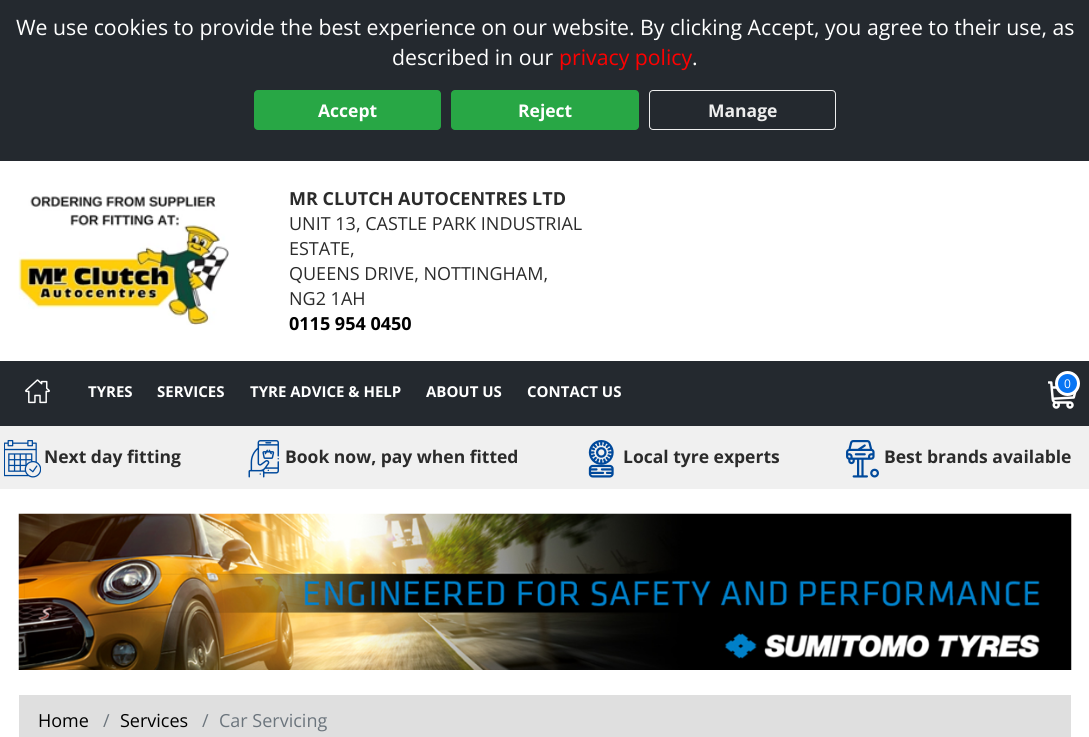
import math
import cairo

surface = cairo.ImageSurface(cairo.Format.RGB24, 1089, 737)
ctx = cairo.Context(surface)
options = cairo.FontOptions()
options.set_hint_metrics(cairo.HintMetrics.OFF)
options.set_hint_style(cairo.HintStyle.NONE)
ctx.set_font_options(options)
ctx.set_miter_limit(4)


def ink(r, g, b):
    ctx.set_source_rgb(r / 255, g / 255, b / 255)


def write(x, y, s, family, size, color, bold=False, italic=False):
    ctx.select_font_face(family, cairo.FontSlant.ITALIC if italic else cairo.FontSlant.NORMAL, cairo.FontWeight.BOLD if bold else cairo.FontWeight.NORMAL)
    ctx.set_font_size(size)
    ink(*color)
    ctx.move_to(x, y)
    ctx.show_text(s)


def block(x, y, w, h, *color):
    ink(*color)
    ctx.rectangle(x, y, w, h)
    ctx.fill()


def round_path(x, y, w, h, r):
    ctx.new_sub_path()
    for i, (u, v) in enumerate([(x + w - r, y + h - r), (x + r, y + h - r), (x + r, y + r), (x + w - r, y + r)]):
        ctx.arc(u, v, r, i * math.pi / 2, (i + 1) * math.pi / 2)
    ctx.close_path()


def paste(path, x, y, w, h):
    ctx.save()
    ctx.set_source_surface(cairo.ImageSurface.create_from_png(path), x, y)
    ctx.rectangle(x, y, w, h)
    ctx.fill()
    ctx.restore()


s1 = dict(family="Open Sans", size=21.25, color=(255, 255, 255))
s2 = dict(family="Open Sans", size=21.25, color=(255, 0, 0))
s3 = dict(family="Open Sans", size=17.5, color=(255, 255, 255), bold=True)
s4 = dict(family="Open Sans", size=17.5, color=(238, 238, 238), bold=True)
s5 = dict(family="Open Sans", size=18, color=(43, 43, 43), bold=True)
s6 = dict(family="Open Sans", size=18, color=(43, 43, 43))
s7 = dict(family="Open Sans", size=18, color=(0, 0, 0), bold=True)
s8 = dict(family="Open Sans", size=15, color=(255, 255, 255), bold=True)
s9 = dict(family="Open Sans", size=12, color=(255, 255, 255))
s10 = dict(family="Open Sans", size=17.5, color=(43, 43, 43), bold=True)
s11 = dict(family="Open Sans", size=18, color=(0, 0, 0))
s12 = dict(family="Open Sans", size=18, color=(108, 117, 125))

ink(255, 255, 255)
ctx.paint()
block(0, 0, 1089, 161, 36, 41, 47)
write(16, 35, "We use cookies to provide the best experience on our website. By clicking Accept, you agree to their use, as", **s1)
write(392, 65, "described in our", **s1)
write(559, 65, "privacy policy", **s2)
write(692, 65, ".", **s1)
ink(40, 167, 69)
round_path(254, 90, 187, 40, 4)
ctx.fill()
write(318, 117, "Accept", **s3)
ink(40, 167, 69)
round_path(451, 90, 188, 40, 4)
ctx.fill()
write(518, 117, "Reject", **s3)
round_path(649.5, 90.5, 186, 39, 3.5)
ink(238, 238, 238)
ctx.set_line_width(1)
ctx.stroke()
write(708, 117, "Manage", **s4)
paste("pic1.png", 18, 196, 211, 129)
write(289, 205, "MR CLUTCH AUTOCENTRES LTD", **s5)
write(289, 230, "UNIT 13, CASTLE PARK INDUSTRIAL", **s6)
write(289, 255, "ESTATE,", **s6)
write(289, 280, "QUEENS DRIVE, NOTTINGHAM,", **s6)
write(289, 305, "NG2 1AH", **s6)
write(289, 330, "0115 954 0450", **s7)
block(0, 361, 1089, 65, 36, 41, 47)
paste("pic2.png", 25, 379, 25, 25)
write(88, 397, "TYRES", **s8)
write(157, 397, "SERVICES", **s8)
write(250, 397, "TYRE ADVICE & HELP", **s8)
write(426, 397, "ABOUT US", **s8)
write(527, 397, "CONTACT US", **s8)
paste("pic3.png", 1048, 381, 29, 28)
ink(8, 117, 244)
ctx.arc(1067.5, 383.5, 11, 0, 2 * math.pi)
ctx.fill_preserve()
ink(255, 255, 255)
ctx.set_line_width(3)
ctx.stroke()
write(1064, 388, "0", **s9)
block(0, 426, 1089, 63, 240, 240, 240)
paste("pic4.png", 4, 440, 37, 38)
write(44, 463, "Next day fitting", **s10)
paste("pic5.png", 248, 440, 31, 38)
write(285, 463, "Book now, pay when fitted", **s10)
paste("pic6.png", 588, 440, 26, 38)
write(623, 463, "Local tyre experts", **s10)
paste("pic7.png", 846, 440, 33, 38)
write(884, 463, "Best brands available", **s10)
paste("pic8.png", 18, 513, 1054, 157)
block(19, 695, 1052, 42, 223, 223, 223)
write(38, 727, "Home", **s11)
write(103, 727, "/", **s12)
write(120, 727, "Services", **s11)
write(202, 727, "/", **s12)
write(219, 727, "Car Servicing", **s12)
surface.write_to_png("screenshot.png")
